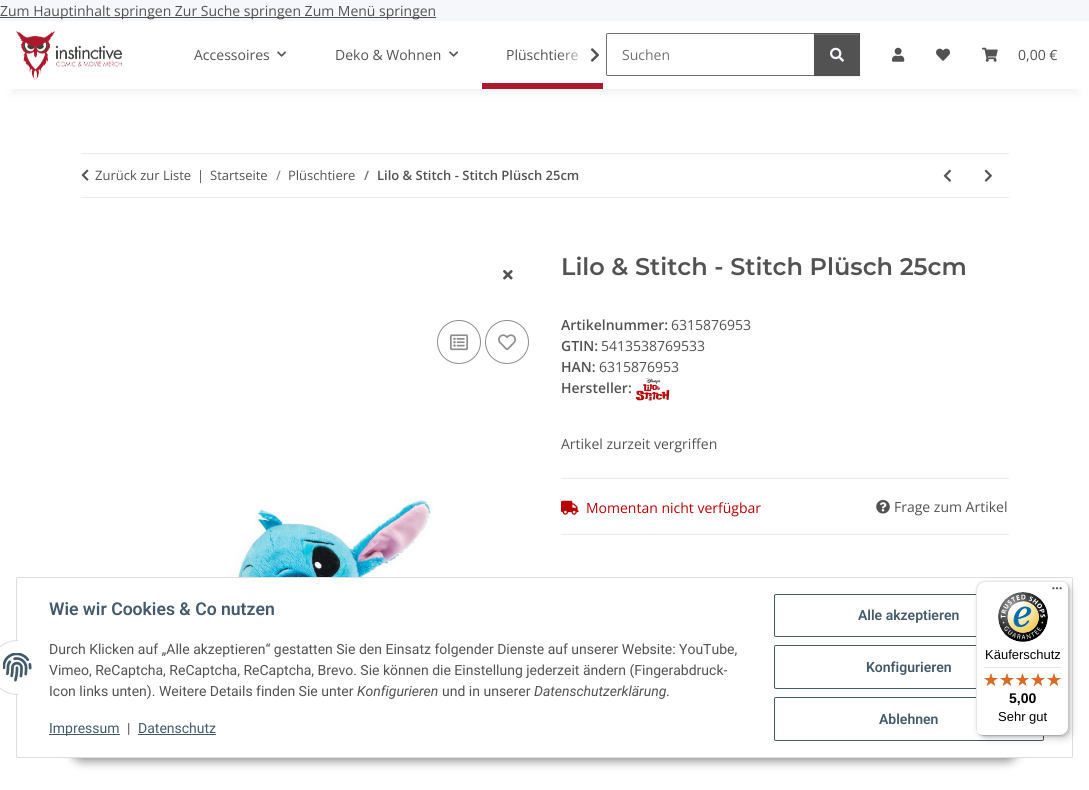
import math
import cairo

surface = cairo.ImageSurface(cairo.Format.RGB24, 1089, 790)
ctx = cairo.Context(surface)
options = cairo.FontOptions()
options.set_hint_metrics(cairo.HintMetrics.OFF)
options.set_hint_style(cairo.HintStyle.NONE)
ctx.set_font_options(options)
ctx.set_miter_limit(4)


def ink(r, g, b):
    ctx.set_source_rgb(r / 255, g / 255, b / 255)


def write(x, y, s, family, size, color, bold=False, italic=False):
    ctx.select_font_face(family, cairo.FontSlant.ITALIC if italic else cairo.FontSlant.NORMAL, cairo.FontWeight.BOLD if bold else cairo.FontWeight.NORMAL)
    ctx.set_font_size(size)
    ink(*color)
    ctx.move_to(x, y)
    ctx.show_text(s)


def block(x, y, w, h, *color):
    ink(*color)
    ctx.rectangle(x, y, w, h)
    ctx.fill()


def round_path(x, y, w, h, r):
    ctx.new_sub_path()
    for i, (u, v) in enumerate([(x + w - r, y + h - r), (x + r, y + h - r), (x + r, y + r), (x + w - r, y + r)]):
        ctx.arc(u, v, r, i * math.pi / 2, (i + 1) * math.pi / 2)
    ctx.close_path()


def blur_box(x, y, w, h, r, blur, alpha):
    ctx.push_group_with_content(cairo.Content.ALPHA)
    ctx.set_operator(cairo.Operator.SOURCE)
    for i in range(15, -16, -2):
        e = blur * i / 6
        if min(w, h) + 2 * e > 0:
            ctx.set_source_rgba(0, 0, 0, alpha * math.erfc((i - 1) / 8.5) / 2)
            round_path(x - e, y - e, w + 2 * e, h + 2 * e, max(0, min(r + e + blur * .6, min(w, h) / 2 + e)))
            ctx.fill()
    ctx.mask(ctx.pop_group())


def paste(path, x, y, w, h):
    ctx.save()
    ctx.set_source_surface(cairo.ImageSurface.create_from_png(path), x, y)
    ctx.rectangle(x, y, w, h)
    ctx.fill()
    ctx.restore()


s1 = dict(family="Open Sans", size=14, color=(82, 82, 82))
s2 = dict(family="Open Sans", size=14, color=(112, 112, 112))
s3 = dict(family="Open Sans", size=13, color=(82, 82, 82))
s4 = dict(family="Open Sans", size=13, color=(112, 112, 112))
s5 = dict(family="Open Sans SemiBold", size=13, color=(112, 112, 112))
s6 = dict(family="Open Sans SemiBold", size=13, color=(82, 82, 82))
s7 = dict(family="Montserrat SemiBold", size=24, color=(82, 82, 82))
s8 = dict(family="Open Sans SemiBold", size=14, color=(82, 82, 82))
s9 = dict(family="Open Sans", size=14, color=(185, 0, 0))
s10 = dict(family="Roboto SemiBold", size=17.6, color=(67, 90, 107))
s11 = dict(family="Roboto", size=14, color=(82, 82, 82))
s12 = dict(family="Roboto", size=14, color=(82, 82, 82), italic=True)
s13 = dict(family="Roboto", size=14, color=(67, 90, 107))
s14 = dict(family="Roboto SemiBold", size=14, color=(67, 90, 107))
s15 = dict(family="Liberation Sans", size=13, color=(0, 0, 0))
s16 = dict(family="Liberation Sans", size=14, color=(0, 0, 0), bold=True)

ink(245, 247, 250)
ctx.paint()
block(0, 17, 436, 1, 82, 82, 82)
write(0, 16, "Zum Hauptinhalt springen Zur Suche springen Zum Menü springen", **s1)
block(0, 89, 1089, 701, 255, 255, 255)
ink(0, 0, 0)
blur_box(12, 49, 1065, 44, 0, 4.5, 0.06)
block(0, 21, 1089, 68, 255, 255, 255)
paste("pic1.png", 16, 30, 106, 50)
write(194, 60, "Accessoires", **s1)
paste("pic2.png", 277, 51, 9, 6)
write(335, 60, "Deko & Wohnen", **s1)
paste("pic2.png", 449, 51, 9, 6)
write(506, 60, "Plüschtiere", **s1)
block(482, 83, 121, 6, 172, 24, 46)
gradient = cairo.LinearGradient(558, 55, 606, 55)
gradient.add_color_stop_rgba(0, 1, 1, 1, 0.01)
gradient.add_color_stop_rgba(0.7, 1, 1, 1, 1)
ctx.set_source(gradient)
ctx.rectangle(558, 52, 20, 9)
ctx.fill()
paste("pic3.png", 590, 48, 10, 14)
ctx.new_path()
ctx.move_to(608, 33.5)
ctx.line_to(814.5, 33.5)
ctx.line_to(814.5, 75.5)
ctx.line_to(608, 75.5)
ctx.curve_to(607, 75.5, 606.5, 75, 606.5, 74)
ctx.line_to(606.5, 35)
ctx.curve_to(606.5, 34, 607, 33.5, 608, 33.5)
ctx.close_path()
ink(112, 112, 112)
ctx.set_line_width(1)
ctx.stroke()
write(622, 60, "Suchen", **s2)
ink(0, 0, 0)
blur_box(814, 34, 46, 43, 0, 0.5, 0.07)
block(814, 33, 46, 43, 82, 82, 82)
block(815, 34, 44, 1, 108, 108, 108)
paste("pic4.png", 830, 47, 14, 15)
paste("pic5.png", 892, 47, 13, 15)
paste("pic6.png", 936, 48, 14, 13)
paste("pic7.png", 982, 47, 16, 15)
write(1018, 60, "0,00 €", **s1)
block(81, 153, 928, 1, 235, 235, 235)
block(81, 197, 928, 1, 235, 235, 235)
paste("pic8.png", 81, 169, 8, 12)
write(95, 180, "Zurück zur Liste", **s3)
write(197, 180, "|", **s3)
write(210, 180, "Startseite", **s3)
write(276, 180, "/", **s4)
write(288, 180, "Plüschtiere", **s3)
write(364, 180, "/", **s5)
write(377, 180, "Lilo & Stitch - Stitch Plüsch 25cm", **s6)
paste("pic9.png", 943, 169, 8, 13)
paste("pic10.png", 984, 169, 8, 13)
paste("pic11.png", 503, 270, 10, 10)
ctx.arc(459, 342, 21.5, 0, 2 * math.pi)
ink(141, 141, 141)
ctx.stroke()
paste("pic12.png", 450, 334, 18, 17)
ctx.arc(507, 342, 21.5, 0, 2 * math.pi)
ctx.stroke()
paste("pic13.png", 498, 334, 18, 17)
paste("pic14.png", 141, 497, 292, 80)
write(561, 275, "Lilo & Stitch - Stitch Plüsch 25cm", **s7)
write(561, 330, "Artikelnummer:", **s8)
write(671, 330, "6315876953", **s1)
write(561, 351, "GTIN:", **s8)
write(601, 351, "5413538769533", **s1)
write(561, 372, "HAN:", **s8)
write(599, 372, "6315876953", **s1)
write(561, 393, "Hersteller:", **s8)
paste("pic15.png", 635, 378, 35, 23)
write(561, 449, "Artikel zurzeit vergriffen", **s1)
block(561, 478, 448, 1, 235, 235, 235)
block(561, 534, 448, 1, 235, 235, 235)
paste("pic16.png", 561, 500, 18, 15)
write(586, 513, "Momentan nicht verfügbar", **s9)
paste("pic17.png", 876, 500, 14, 14)
write(894, 512, "Frage zum Artikel", **s1)
ink(0, 0, 0)
blur_box(70, 729, 949, 32, 16, 5, 0.45)
ink(255, 255, 255)
round_path(16.5, 577.5, 1056, 180, 1.5)
ctx.fill_preserve()
ink(221, 221, 221)
ctx.stroke()
ink(255, 255, 255)
ctx.arc(17.5, 667.5, 27, 0, 2 * math.pi)
ctx.fill_preserve()
ink(221, 221, 221)
ctx.stroke()
block(18, 640, 27, 55, 255, 255, 255)
paste("pic18.png", 3, 653, 29, 29)
write(49, 615, "Wie wir Cookies & Co nutzen", **s10)
write(49, 654, "Durch Klicken auf „Alle akzeptieren“ gestatten Sie den Einsatz folgender Dienste auf unserer Website: YouTube,", **s11)
write(49, 675, "Vimeo, ReCaptcha, ReCaptcha, ReCaptcha, Brevo. Sie können die Einstellung jederzeit ändern (Fingerabdruck-", **s11)
write(49, 696, "Icon links unten). Weitere Details finden Sie unter", **s11)
write(357, 696, "Konfigurieren", **s12)
write(442, 696, "und in unserer", **s11)
write(534, 696, "Datenschutzerklärung", **s12)
write(666, 696, ".", **s11)
block(49, 734, 71, 1, 67, 90, 107)
write(49, 733, "Impressum", **s13)
write(127, 733, "|", **s11)
write(138, 733, "Datenschutz", **s13)
block(138, 734, 78, 1, 67, 90, 107)
round_path(774.5, 594.5, 269, 42, 1.5)
ctx.stroke()
write(858, 620, "Alle akzeptieren", **s14)
round_path(774.5, 645.5, 269, 43, 1.5)
ctx.stroke()
write(866, 672, "Konfigurieren", **s14)
round_path(774.5, 697.5, 269, 43, 1.5)
ctx.stroke()
write(879, 724, "Ablehnen", **s14)
ink(0, 0, 0)
blur_box(979, 584, 93, 155, 8, 4, 0.15)
blur_box(977, 582, 93, 155, 8, 1, 0.15)
ink(255, 255, 255)
round_path(976, 581, 93, 155, 8)
ctx.fill()
ink(229, 229, 229)
ctx.new_path()
ctx.move_to(985, 582)
ctx.line_to(1062, 582)
ctx.curve_to(1064, 582, 1066, 583, 1068, 585)
ctx.curve_to(1066, 583, 1064, 581, 1061, 581)
ctx.line_to(984, 581)
ctx.curve_to(980, 581, 976, 585, 976, 589)
ctx.line_to(976, 728)
ctx.curve_to(976, 731, 978, 733, 980, 735)
ctx.curve_to(978, 733, 977, 731, 977, 729)
ctx.line_to(977, 590)
ctx.curve_to(977, 586, 981, 582, 985, 582)
ctx.close_path()
ctx.fill()
ink(204, 204, 204)
ctx.new_path()
ctx.move_to(977, 732)
ctx.curve_to(979, 734, 981, 736, 984, 736)
ctx.line_to(1061, 736)
ctx.curve_to(1065, 736, 1069, 732, 1069, 728)
ctx.line_to(1069, 589)
ctx.curve_to(1069, 586, 1067, 584, 1065, 582)
ctx.curve_to(1067, 584, 1068, 586, 1068, 588)
ctx.line_to(1068, 727)
ctx.curve_to(1068, 731, 1064, 735, 1060, 735)
ctx.line_to(983, 735)
ctx.curve_to(981, 735, 979, 734, 977, 732)
ctx.close_path()
ctx.fill()
ctx.set_source_rgba(0.196, 0.196, 0.196, 0.2)
ctx.new_path()
ctx.move_to(978, 733)
ctx.curve_to(979, 735, 982, 736, 984, 736)
ctx.line_to(1061, 736)
ctx.curve_to(1065, 736, 1069, 732, 1069, 728)
ctx.line_to(1069, 589)
ctx.curve_to(1069, 587, 1068, 584, 1066, 583)
ctx.curve_to(1067, 584, 1068, 586, 1068, 588)
ctx.line_to(1068, 727)
ctx.curve_to(1068, 732, 1065, 735, 1060, 735)
ctx.line_to(983, 735)
ctx.curve_to(981, 735, 979, 734, 978, 733)
ctx.close_path()
ctx.fill()
ctx.set_source_rgba(1, 1, 1, 0.3)
ctx.new_path()
ctx.move_to(1060, 736)
ctx.line_to(1061, 736)
ctx.curve_to(1065, 736, 1069, 732, 1069, 728)
ctx.line_to(1069, 589)
ctx.curve_to(1069, 587, 1068, 584, 1066, 583)
ctx.curve_to(1067, 584, 1068, 586, 1068, 588)
ctx.line_to(1068, 728)
ctx.curve_to(1068, 732, 1065, 736, 1060, 736)
ctx.close_path()
ctx.fill()
paste("pic19.png", 1052, 587, 10, 3)
paste("pic20.png", 998, 592, 50, 50)
write(985, 659, "Käuferschutz", **s15)
block(984, 667, 77, 1, 229, 229, 229)
paste("pic21.png", 984, 673, 14, 13)
paste("pic21.png", 1000, 673, 14, 13)
paste("pic22.png", 1016, 673, 13, 13)
paste("pic21.png", 1031, 673, 14, 13)
paste("pic21.png", 1047, 673, 14, 13)
paste("pic23.png", 984, 673, 14, 13)
paste("pic23.png", 1000, 673, 14, 13)
paste("pic24.png", 1016, 673, 13, 13)
paste("pic23.png", 1031, 673, 14, 13)
paste("pic23.png", 1047, 673, 14, 13)
write(1009, 703, "5,00", **s16)
write(998, 721, "Sehr gut", **s15)
surface.write_to_png("screenshot.png")
